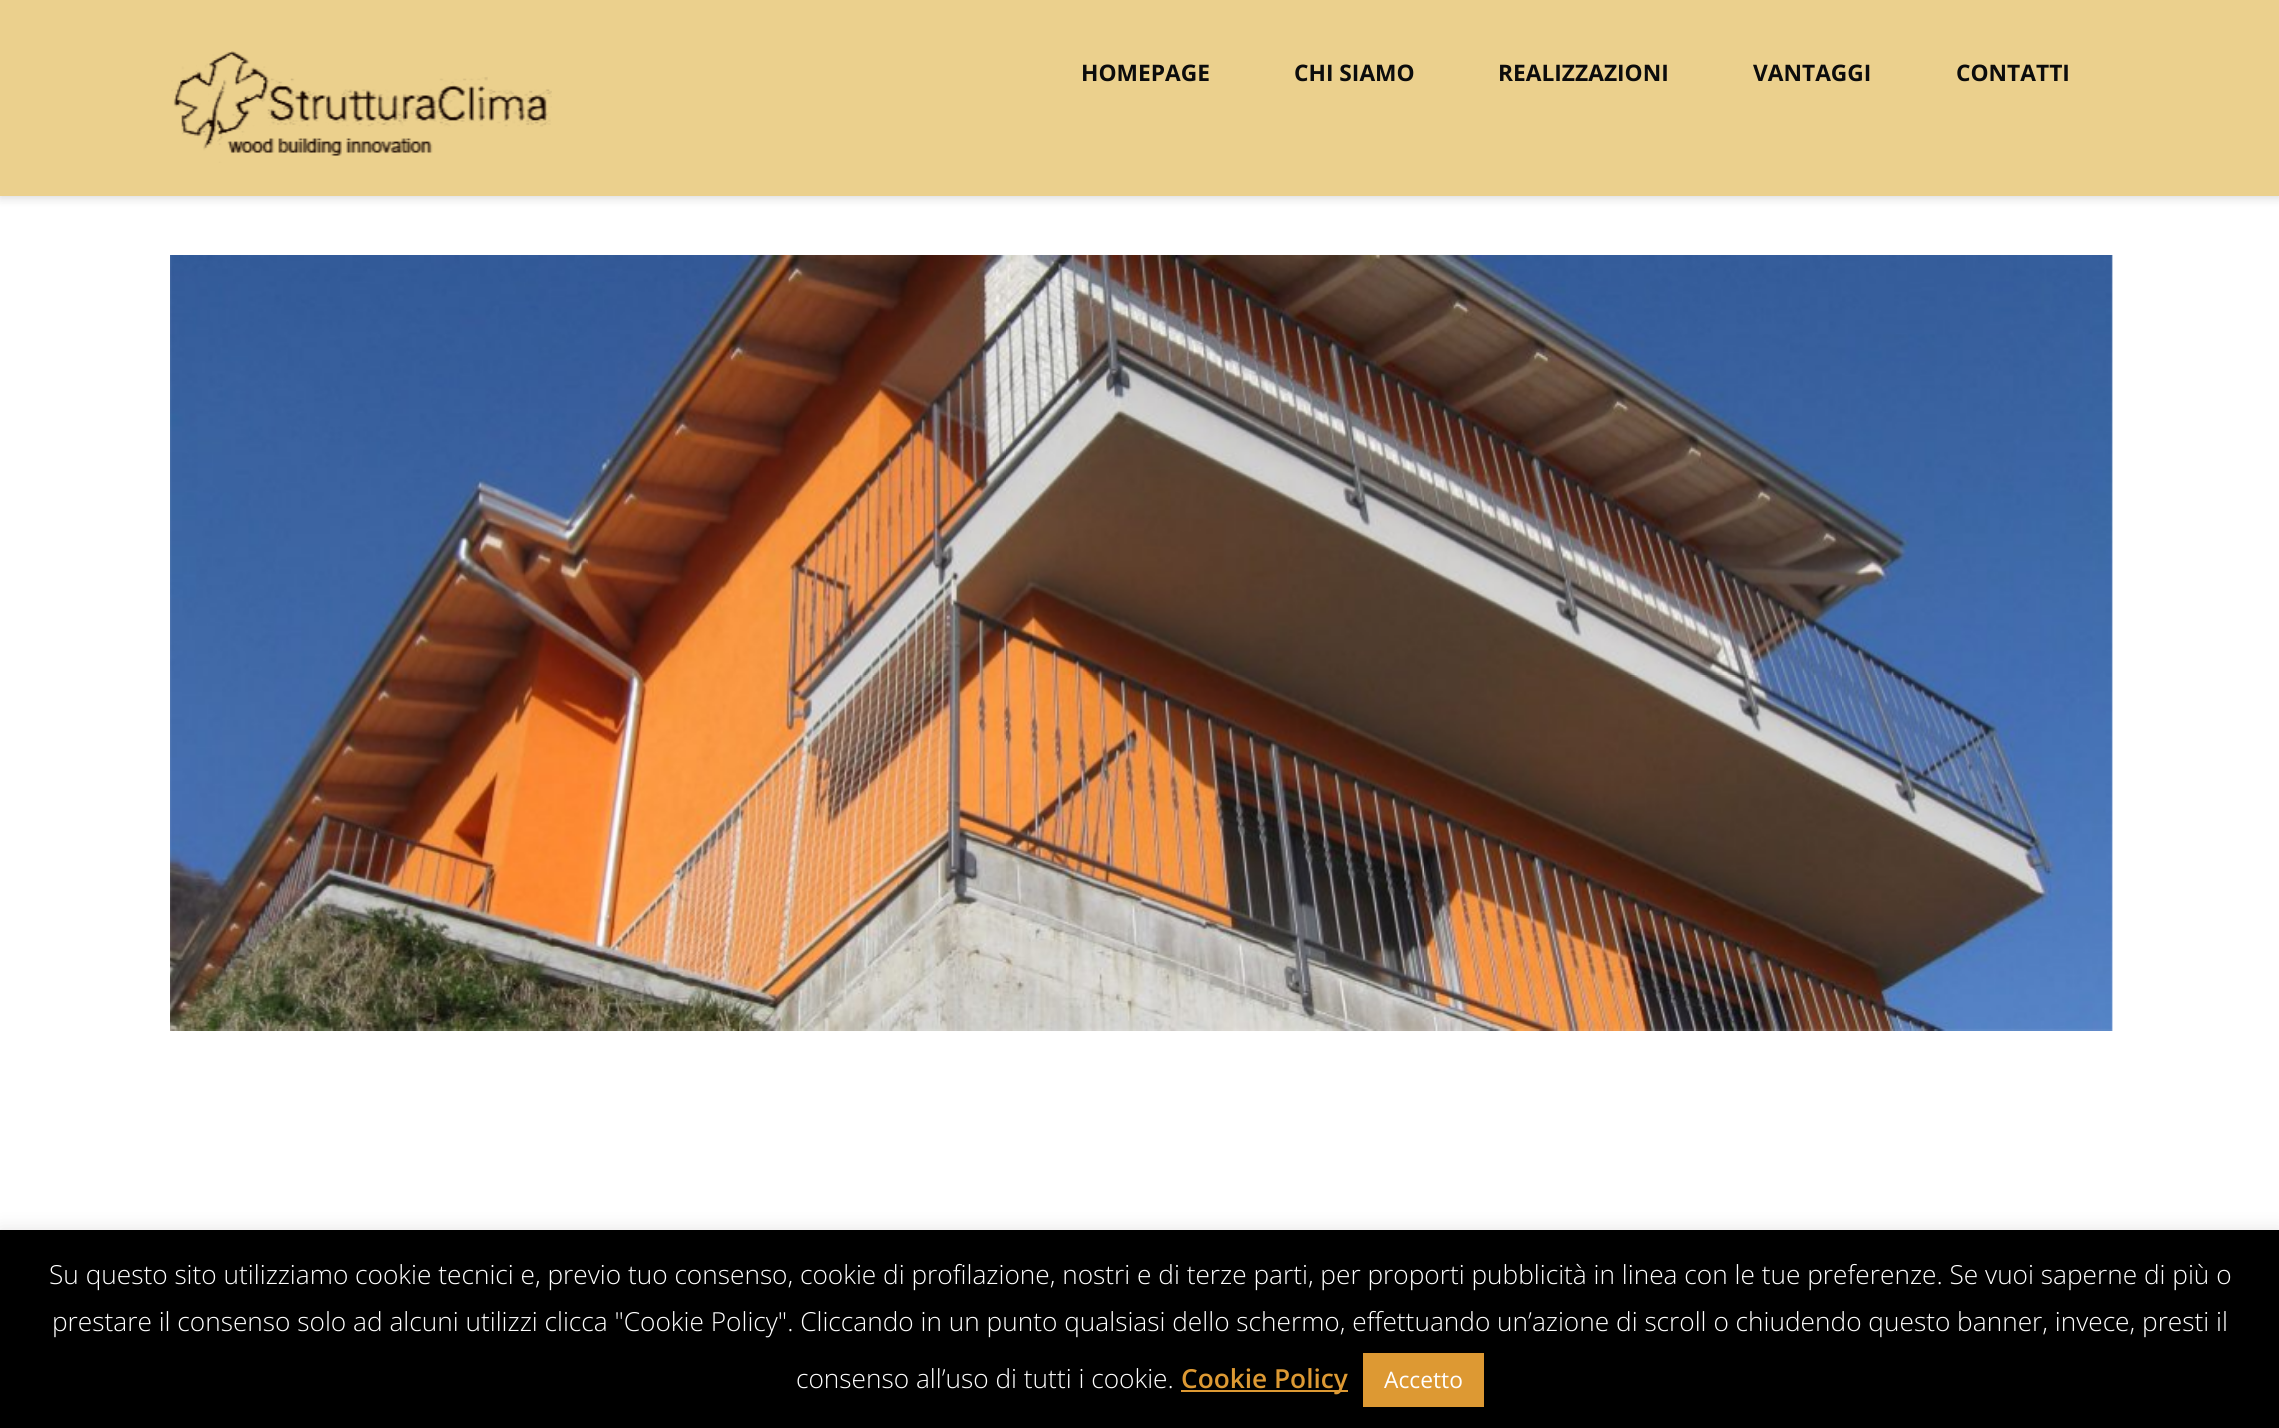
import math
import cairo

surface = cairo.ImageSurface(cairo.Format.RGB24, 2279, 1428)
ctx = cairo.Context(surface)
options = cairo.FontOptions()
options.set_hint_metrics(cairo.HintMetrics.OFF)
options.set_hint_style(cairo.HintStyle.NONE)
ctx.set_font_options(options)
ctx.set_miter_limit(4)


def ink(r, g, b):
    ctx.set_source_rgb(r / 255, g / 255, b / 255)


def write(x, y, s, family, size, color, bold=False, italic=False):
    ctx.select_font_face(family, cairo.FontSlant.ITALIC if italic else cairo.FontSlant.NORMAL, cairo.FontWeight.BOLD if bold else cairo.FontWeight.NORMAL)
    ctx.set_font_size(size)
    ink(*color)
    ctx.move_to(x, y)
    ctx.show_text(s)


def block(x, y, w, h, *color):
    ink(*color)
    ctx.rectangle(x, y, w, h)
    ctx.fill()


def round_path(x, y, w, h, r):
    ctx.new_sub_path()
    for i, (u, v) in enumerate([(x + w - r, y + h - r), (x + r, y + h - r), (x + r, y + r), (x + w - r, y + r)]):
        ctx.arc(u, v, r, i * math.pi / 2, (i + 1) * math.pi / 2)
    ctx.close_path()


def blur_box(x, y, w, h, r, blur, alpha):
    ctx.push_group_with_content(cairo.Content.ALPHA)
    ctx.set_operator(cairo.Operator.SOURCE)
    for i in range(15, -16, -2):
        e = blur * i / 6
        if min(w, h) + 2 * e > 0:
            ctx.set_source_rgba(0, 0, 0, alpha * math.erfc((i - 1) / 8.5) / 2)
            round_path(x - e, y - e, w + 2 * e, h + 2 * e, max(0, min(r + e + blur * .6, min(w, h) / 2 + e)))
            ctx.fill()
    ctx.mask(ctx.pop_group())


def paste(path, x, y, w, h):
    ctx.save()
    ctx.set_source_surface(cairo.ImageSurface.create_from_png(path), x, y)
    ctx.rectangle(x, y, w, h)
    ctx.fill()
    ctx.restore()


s1 = dict(family="Open Sans", size=22.75, color=(12, 12, 12), bold=True)
s2 = dict(family="Open Sans Light", size=26.25, color=(255, 255, 255))
s3 = dict(family="Open Sans SemiBold", size=26.25, color=(221, 153, 51))
s4 = dict(family="Open Sans", size=22.75, color=(255, 255, 255))

ink(255, 255, 255)
ctx.paint()
ink(0, 0, 0)
blur_box(0, 2, 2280, 196, 0, 5, 0.15)
block(0, 0, 2279, 196, 235, 208, 141)
paste("pic1.png", 171, 51, 381, 112)
write(1081, 81, "HOMEPAGE", **s1)
write(1294, 81, "CHI SIAMO", **s1)
write(1498, 81, "REALIZZAZIONI", **s1)
write(1753, 81, "VANTAGGI", **s1)
write(1956, 81, "CONTATTI", **s1)
paste("pic2.png", 170, 255, 1943, 776)
ink(172, 171, 171)
blur_box(0, 1229, 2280, 197, 0, 9, 0.3)
block(0, 1230, 2279, 198, 0, 0, 0)
write(49, 1284, "Su questo sito utilizziamo cookie tecnici e, previo tuo consenso, cookie di profilazione, nostri e di terze parti, per proporti pubblicità in linea con le tue preferenze. Se vuoi saperne di più o", **s2)
write(52, 1331, "prestare il consenso solo ad alcuni utilizzi clicca \"Cookie Policy\". Cliccando in un punto qualsiasi dello schermo, effettuando un’azione di scroll o chiudendo questo banner, invece, presti il", **s2)
write(796, 1388, "consenso all’uso di tutti i cookie.", **s2)
block(1181, 1390, 167, 2, 221, 153, 51)
write(1181, 1388, "Cookie Policy", **s3)
block(1363, 1353, 121, 54, 221, 153, 51)
write(1384, 1388, "Accetto", **s4)
surface.write_to_png("screenshot.png")
